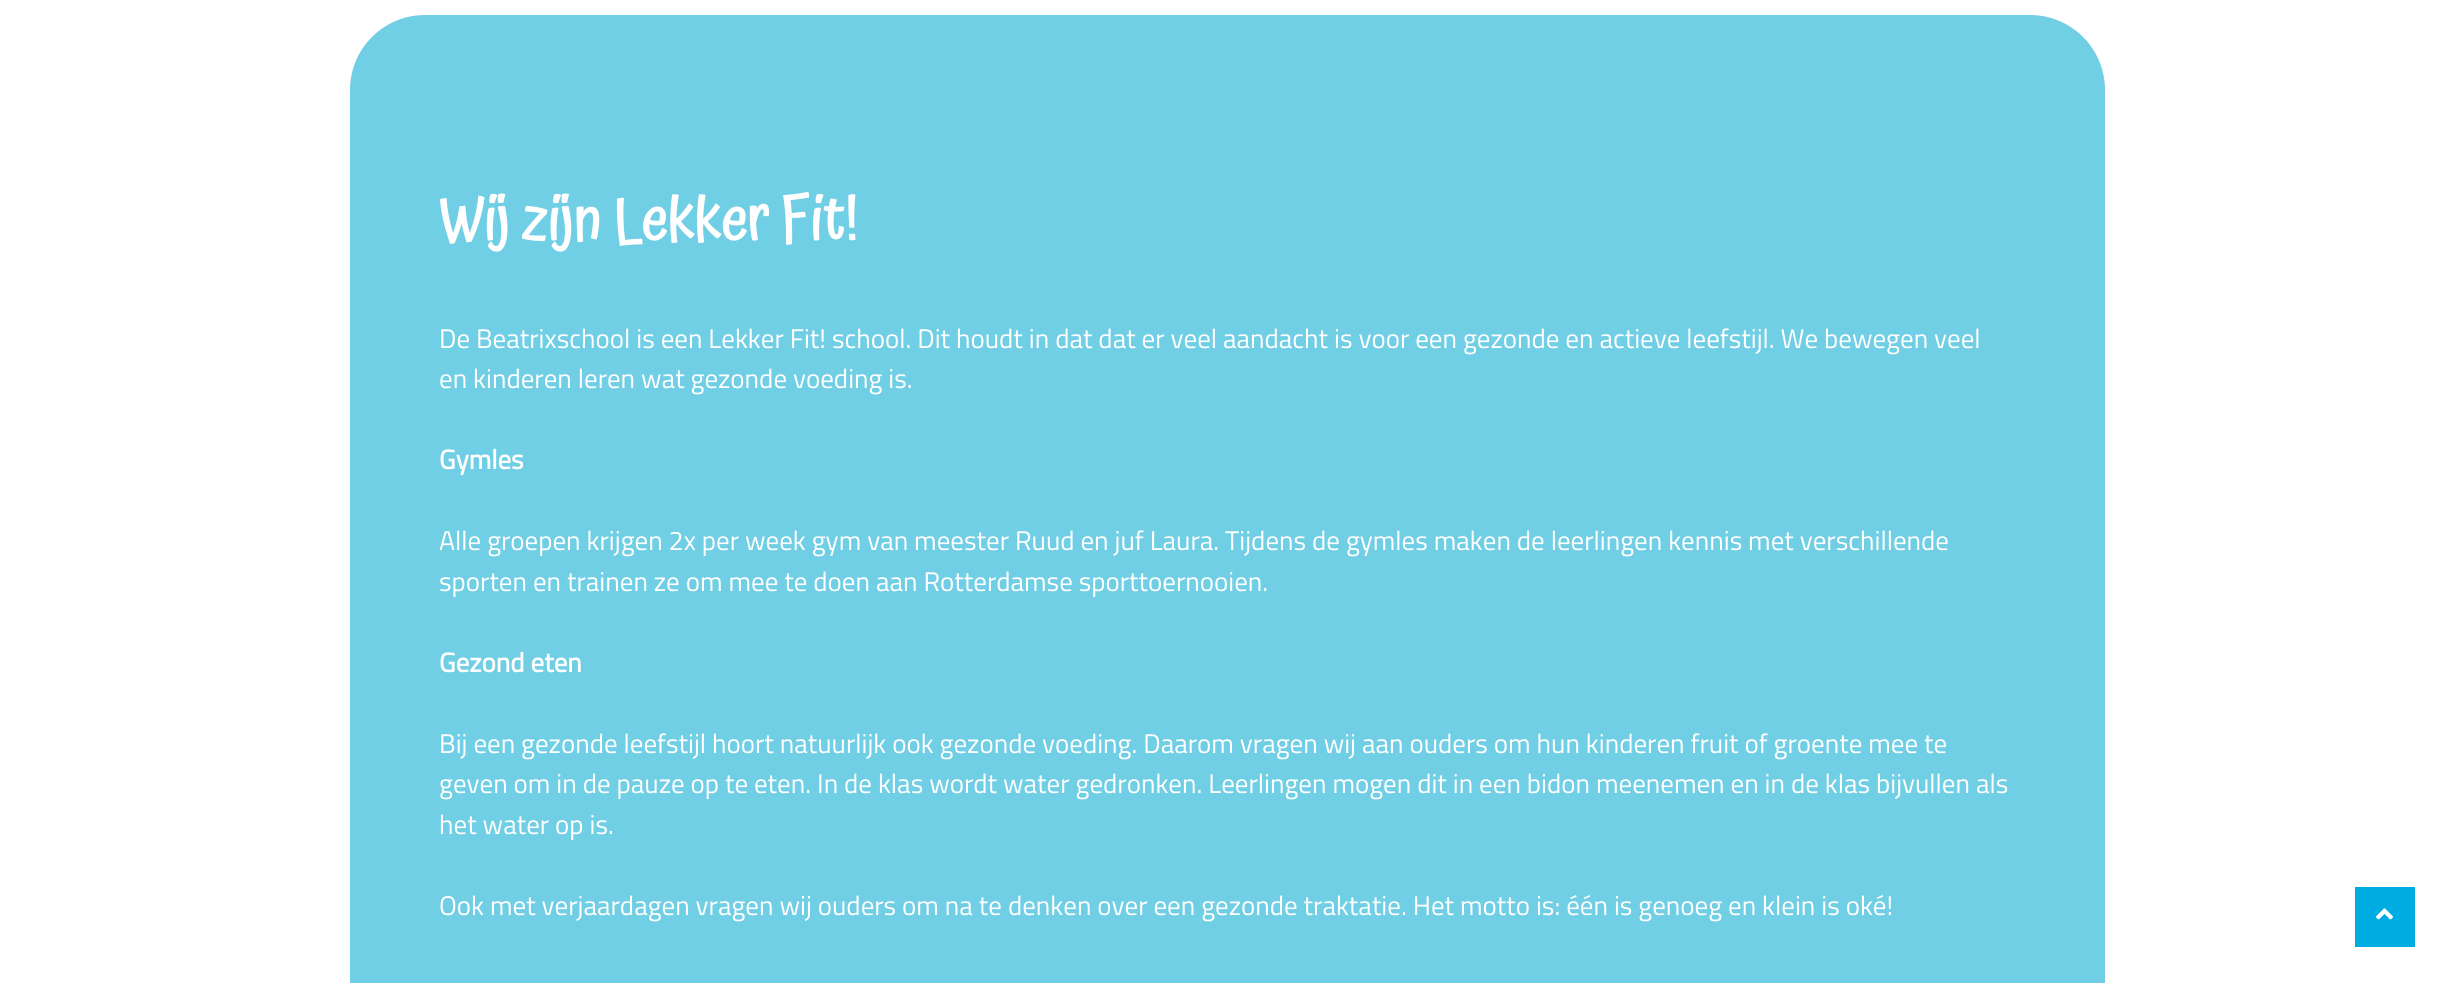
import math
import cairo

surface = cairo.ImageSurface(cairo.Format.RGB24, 2452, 983)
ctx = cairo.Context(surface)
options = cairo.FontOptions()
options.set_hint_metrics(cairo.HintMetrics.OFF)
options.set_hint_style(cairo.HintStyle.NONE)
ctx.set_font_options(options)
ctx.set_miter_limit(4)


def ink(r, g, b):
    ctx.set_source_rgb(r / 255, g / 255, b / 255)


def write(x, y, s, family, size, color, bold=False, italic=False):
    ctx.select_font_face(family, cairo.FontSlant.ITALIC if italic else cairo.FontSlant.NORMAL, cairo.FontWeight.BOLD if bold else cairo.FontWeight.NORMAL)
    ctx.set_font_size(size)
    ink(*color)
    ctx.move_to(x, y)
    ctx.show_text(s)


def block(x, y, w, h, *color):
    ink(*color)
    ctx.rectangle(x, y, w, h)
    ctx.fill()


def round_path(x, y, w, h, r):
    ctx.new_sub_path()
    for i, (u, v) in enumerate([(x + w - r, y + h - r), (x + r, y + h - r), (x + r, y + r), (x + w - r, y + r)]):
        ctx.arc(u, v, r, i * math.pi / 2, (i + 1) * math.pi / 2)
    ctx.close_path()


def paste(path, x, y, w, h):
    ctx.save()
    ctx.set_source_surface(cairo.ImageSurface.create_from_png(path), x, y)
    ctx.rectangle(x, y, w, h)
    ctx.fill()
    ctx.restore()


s1 = dict(family="Atma", size=60, color=(255, 255, 255), bold=True)
s2 = dict(family="Titillium Web", size=27, color=(255, 255, 255))
s3 = dict(family="Titillium Web", size=27, color=(255, 255, 255), bold=True)

ink(255, 255, 255)
ctx.paint()
ink(112, 206, 229)
round_path(350, 15, 1755, 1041, 75)
ctx.fill()
write(439, 240, "Wij zijn Lekker Fit!", **s1)
write(439, 348, "De Beatrixschool is een Lekker Fit! school. Dit houdt in dat dat er veel aandacht is voor een gezonde en actieve leefstijl. We bewegen veel", **s2)
write(439, 388, "en kinderen leren wat gezonde voeding is.", **s2)
write(439, 469, "Gymles", **s3)
write(439, 550, "Alle groepen krijgen 2x per week gym van meester Ruud en juf Laura. Tijdens de gymles maken de leerlingen kennis met verschillende", **s2)
write(439, 591, "sporten en trainen ze om mee te doen aan Rotterdamse sporttoernooien.", **s2)
write(439, 672, "Gezond eten", **s3)
write(439, 753, "Bij een gezonde leefstijl hoort natuurlijk ook gezonde voeding. Daarom vragen wij aan ouders om hun kinderen fruit of groente mee te", **s2)
write(439, 793, "geven om in de pauze op te eten. In de klas wordt water gedronken. Leerlingen mogen dit in een bidon meenemen en in de klas bijvullen als", **s2)
write(439, 834, "het water op is.", **s2)
write(439, 915, "Ook met verjaardagen vragen wij ouders om na te denken over een gezonde traktatie. Het motto is: één is genoeg en klein is oké!", **s2)
block(2355, 887, 60, 60, 0, 173, 227)
paste("pic1.png", 2376, 908, 17, 12)
surface.write_to_png("screenshot.png")
